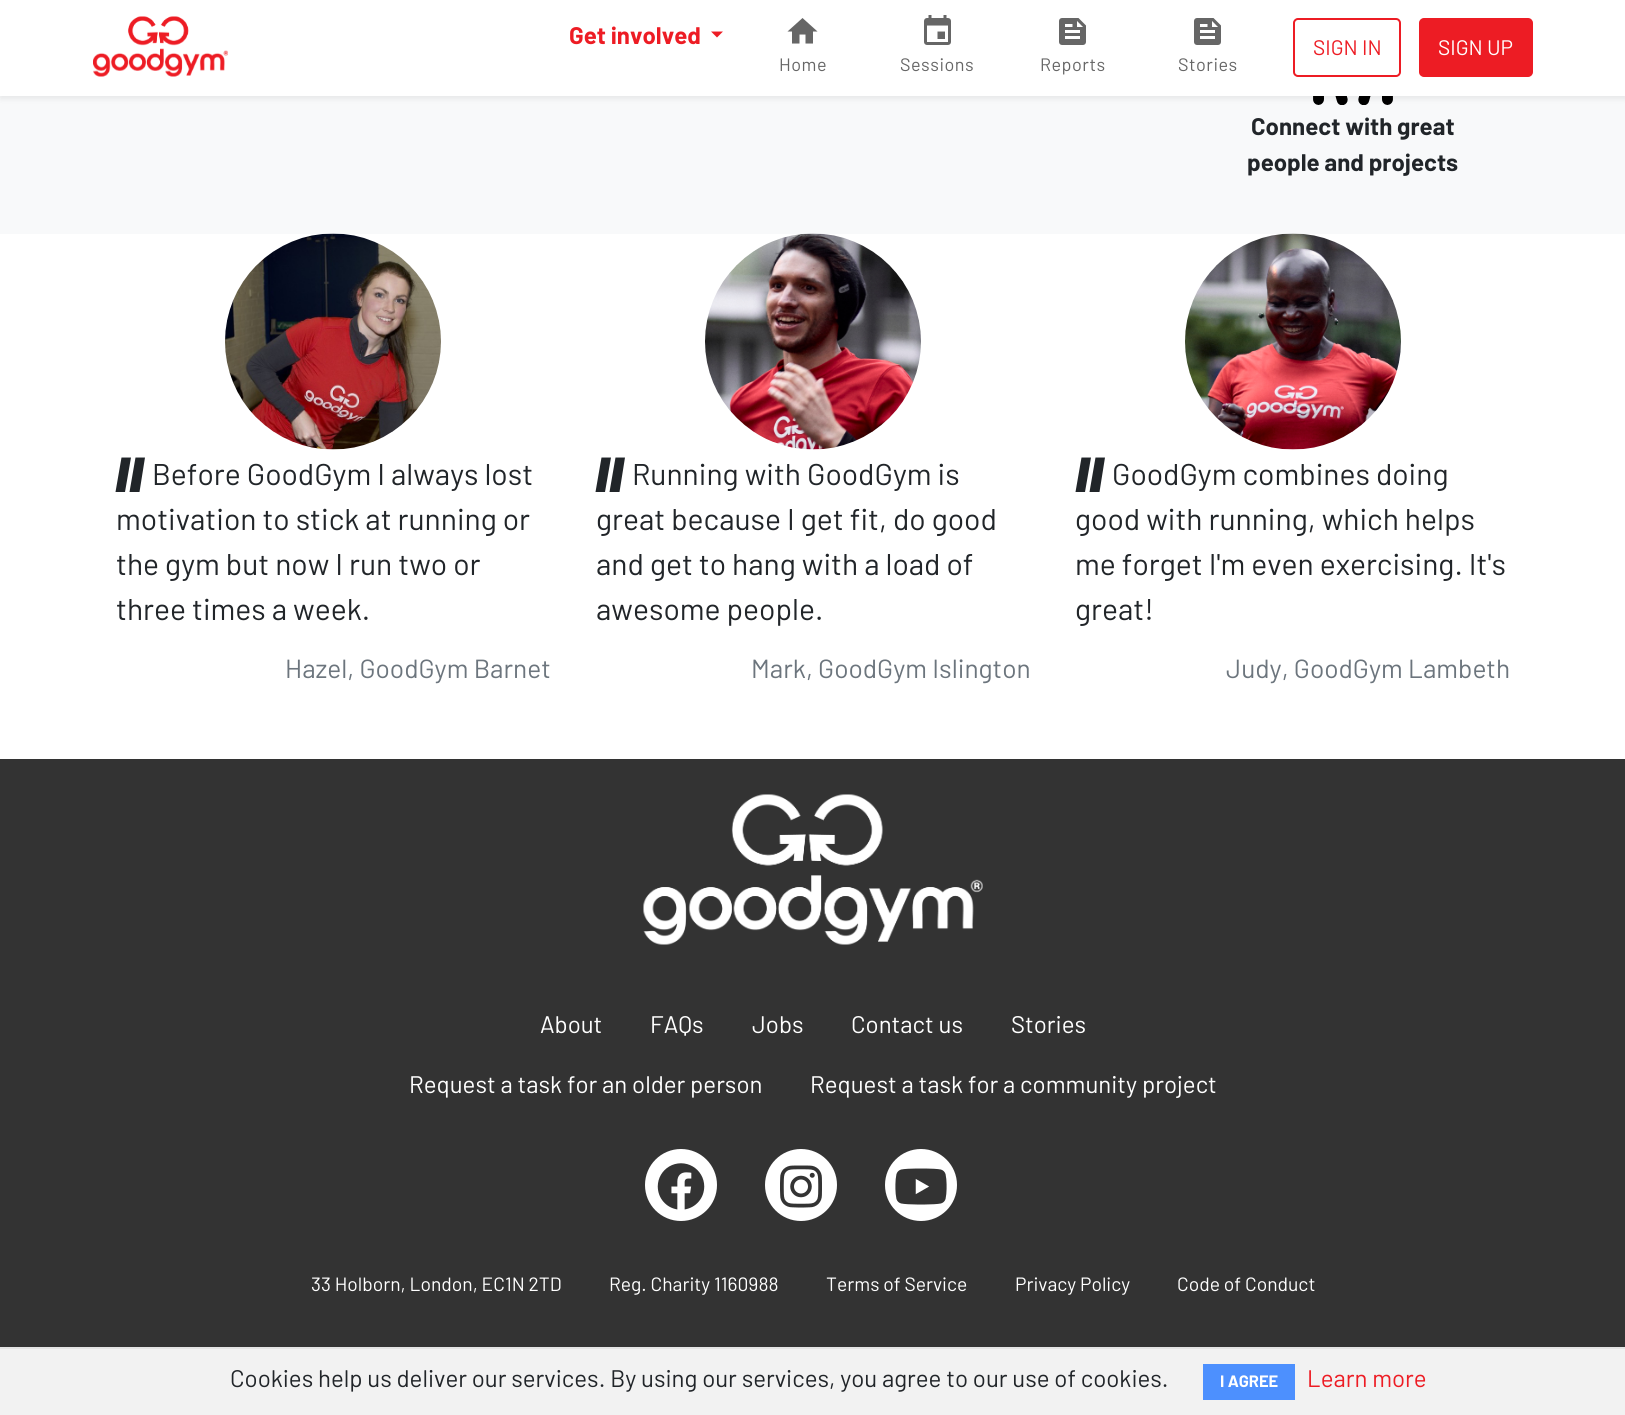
import math
import cairo

surface = cairo.ImageSurface(cairo.Format.RGB24, 1625, 1415)
ctx = cairo.Context(surface)
options = cairo.FontOptions()
options.set_hint_metrics(cairo.HintMetrics.OFF)
options.set_hint_style(cairo.HintStyle.NONE)
ctx.set_font_options(options)
ctx.set_miter_limit(4)


def ink(r, g, b):
    ctx.set_source_rgb(r / 255, g / 255, b / 255)


def write(x, y, s, family, size, color, bold=False, italic=False):
    ctx.select_font_face(family, cairo.FontSlant.ITALIC if italic else cairo.FontSlant.NORMAL, cairo.FontWeight.BOLD if bold else cairo.FontWeight.NORMAL)
    ctx.set_font_size(size)
    ink(*color)
    ctx.move_to(x, y)
    ctx.show_text(s)


def write_spaced(x, y, s, letter, word):
    ctx.move_to(x, y)
    for ch in s:
        ctx.show_text(ch)
        ctx.rel_move_to(letter + word * (ch == ' '), 0)


def block(x, y, w, h, *color):
    ink(*color)
    ctx.rectangle(x, y, w, h)
    ctx.fill()


def round_path(x, y, w, h, r):
    ctx.new_sub_path()
    for i, (u, v) in enumerate([(x + w - r, y + h - r), (x + r, y + h - r), (x + r, y + r), (x + w - r, y + r)]):
        ctx.arc(u, v, r, i * math.pi / 2, (i + 1) * math.pi / 2)
    ctx.close_path()


def blur_box(x, y, w, h, r, blur, alpha):
    ctx.push_group_with_content(cairo.Content.ALPHA)
    ctx.set_operator(cairo.Operator.SOURCE)
    for i in range(15, -16, -2):
        e = blur * i / 6
        if min(w, h) + 2 * e > 0:
            ctx.set_source_rgba(0, 0, 0, alpha * math.erfc((i - 1) / 8.5) / 2)
            round_path(x - e, y - e, w + 2 * e, h + 2 * e, max(0, min(r + e + blur * .6, min(w, h) / 2 + e)))
            ctx.fill()
    ctx.mask(ctx.pop_group())


def paste(path, x, y, w, h):
    ctx.save()
    ctx.set_source_surface(cairo.ImageSurface.create_from_png(path), x, y)
    ctx.rectangle(x, y, w, h)
    ctx.fill()
    ctx.restore()


s1 = dict(family="Barlow", size=24, color=(237, 28, 36), bold=True)
s2 = dict(family="Barlow", size=21, color=(237, 28, 36))
s3 = dict(family="Barlow", size=21, color=(255, 255, 255))
s4 = dict(family="Barlow", size=24, color=(33, 37, 41), bold=True)
s5 = dict(family="Barlow", size=30, color=(33, 37, 41))
s6 = dict(family="Barlow", size=26.25, color=(108, 117, 125))
s7 = dict(family="Barlow", size=24, color=(255, 255, 255))
s8 = dict(family="Barlow", size=19.25, color=(255, 255, 255))
s9 = dict(family="Barlow", size=24, color=(33, 37, 41))
s10 = dict(family="Barlow", size=16.5, color=(255, 255, 255), bold=True)
s11 = dict(family="Barlow", size=24, color=(237, 28, 36))

ink(255, 255, 255)
ctx.paint()
block(0, 96, 1625, 138, 248, 249, 250)
paste("pic4.png", 1313, 96, 80, 9)
ink(0, 0, 0)
blur_box(0, 3, 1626, 96, 0, 3, 0.07)
block(0, 0, 1625, 96, 255, 255, 255)
paste("pic1.png", 93, 16, 135, 61)
write(569, 44, "Get involved", **s1)
ctx.new_path()
ctx.move_to(711, 31.5)
ctx.line_to(723, 31.5)
ctx.line_to(717, 37.5)
ctx.close_path()
ctx.fill()
ink(102, 102, 102)
ctx.new_path()
ctx.move_to(799.5, 43.5)
ctx.line_to(799.5, 34.5)
ctx.line_to(805.5, 34.5)
ctx.line_to(805.5, 43.5)
ctx.line_to(813, 43.5)
ctx.line_to(813, 31.5)
ctx.line_to(817.5, 31.5)
ctx.line_to(802.5, 18)
ctx.line_to(787.5, 31.5)
ctx.line_to(792, 31.5)
ctx.line_to(792, 43.5)
ctx.close_path()
ctx.fill()
ctx.select_font_face("Barlow")
ctx.set_font_size(18)
write_spaced(779, 71, "Home", 0.5, 0)
paste("pic2.png", 924, 15, 27, 30)
write_spaced(900, 71, "Sessions", 0.5, 0)
paste("pic3.png", 1059, 18, 27, 27)
write_spaced(1040, 71, "Reports", 0.5, 0)
paste("pic3.png", 1194, 18, 27, 27)
write_spaced(1178, 71, "Stories", 0.5, 0)
round_path(1294, 19, 106, 57, 4)
ink(237, 28, 36)
ctx.stroke()
write(1313, 55, "SIGN IN", **s2)
round_path(1420, 19, 112, 57, 4)
ctx.fill_preserve()
ctx.stroke()
write(1438, 55, "SIGN UP", **s3)
write(1251, 135, "Connect with great", **s4)
write(1247, 171, "people and projects", **s4)
paste("pic5.png", 225, 233, 216, 217)
ctx.new_path()
ctx.move_to(115.5, 492)
ctx.line_to(121.5, 457.5)
ctx.line_to(131, 457.5)
ctx.line_to(125, 492)
ctx.close_path()
ctx.move_to(129.5, 492)
ctx.line_to(135.5, 457.5)
ctx.line_to(145, 457.5)
ctx.line_to(139.5, 492)
ctx.close_path()
ctx.fill()
write(152, 485, "Before GoodGym I always lost", **s5)
write(116, 530, "motivation to stick at running or", **s5)
write(116, 575, "the gym but now I run two or", **s5)
write(116, 620, "three times a week.", **s5)
write(285, 678, "Hazel, GoodGym Barnet", **s6)
paste("pic6.png", 705, 233, 216, 217)
ink(33, 37, 41)
ctx.new_path()
ctx.move_to(595.5, 492)
ctx.line_to(601.5, 457.5)
ctx.line_to(611, 457.5)
ctx.line_to(605, 492)
ctx.close_path()
ctx.move_to(609.5, 492)
ctx.line_to(615.5, 457.5)
ctx.line_to(625, 457.5)
ctx.line_to(619.5, 492)
ctx.close_path()
ctx.fill()
write(632, 485, "Running with GoodGym is", **s5)
write(596, 530, "great because I get fit, do good", **s5)
write(596, 575, "and get to hang with a load of", **s5)
write(596, 620, "awesome people.", **s5)
write(751, 678, "Mark, GoodGym Islington", **s6)
paste("pic7.png", 1185, 233, 216, 217)
ink(33, 37, 41)
ctx.new_path()
ctx.move_to(1075.5, 492)
ctx.line_to(1081.5, 457.5)
ctx.line_to(1091, 457.5)
ctx.line_to(1085, 492)
ctx.close_path()
ctx.move_to(1089.5, 492)
ctx.line_to(1095.5, 457.5)
ctx.line_to(1105, 457.5)
ctx.line_to(1099.5, 492)
ctx.close_path()
ctx.fill()
write(1112, 485, "GoodGym combines doing", **s5)
write(1075, 530, "good with running, which helps", **s5)
write(1075, 575, "me forget I'm even exercising. It's", **s5)
write(1075, 620, "great!", **s5)
write(1226, 678, "Judy, GoodGym Lambeth", **s6)
block(0, 759, 1625, 588, 51, 51, 51)
paste("pic8.png", 643, 794, 340, 151)
write(540, 1033, "About", **s7)
write(650, 1033, "FAQs", **s7)
write(752, 1033, "Jobs", **s7)
write(851, 1033, "Contact us", **s7)
write(1011, 1033, "Stories", **s7)
write(409, 1093, "Request a task for an older person", **s7)
write(810, 1093, "Request a task for a community project", **s7)
ctx.new_path()
ctx.arc(681, 1185, 36, 0, 2 * math.pi)
ctx.fill()
paste("pic9.png", 657, 1163, 48, 47)
ctx.arc(801, 1185, 36, 0, 2 * math.pi)
ctx.fill()
paste("pic10.png", 780, 1165, 42, 43)
ctx.arc(921, 1185, 36, 0, 2 * math.pi)
ctx.fill()
paste("pic11.png", 895, 1168, 52, 37)
write(311, 1291, "33 Holborn, London, EC1N 2TD", **s8)
write(609, 1291, "Reg. Charity 1160988", **s8)
write(826, 1291, "Terms of Service", **s8)
write(1015, 1291, "Privacy Policy", **s8)
write(1177, 1291, "Code of Conduct", **s8)
block(0, 1349, 1625, 66, 242, 242, 242)
block(0, 1347, 1625, 2, 228, 228, 228)
write(230, 1387, "Cookies help us deliver our services. By using our services, you agree to our use of cookies.", **s9)
block(1203, 1364, 92, 36, 77, 144, 254)
write(1220, 1387, "I AGREE", **s10)
write(1307, 1387, "Learn more", **s11)
surface.write_to_png("screenshot.png")
